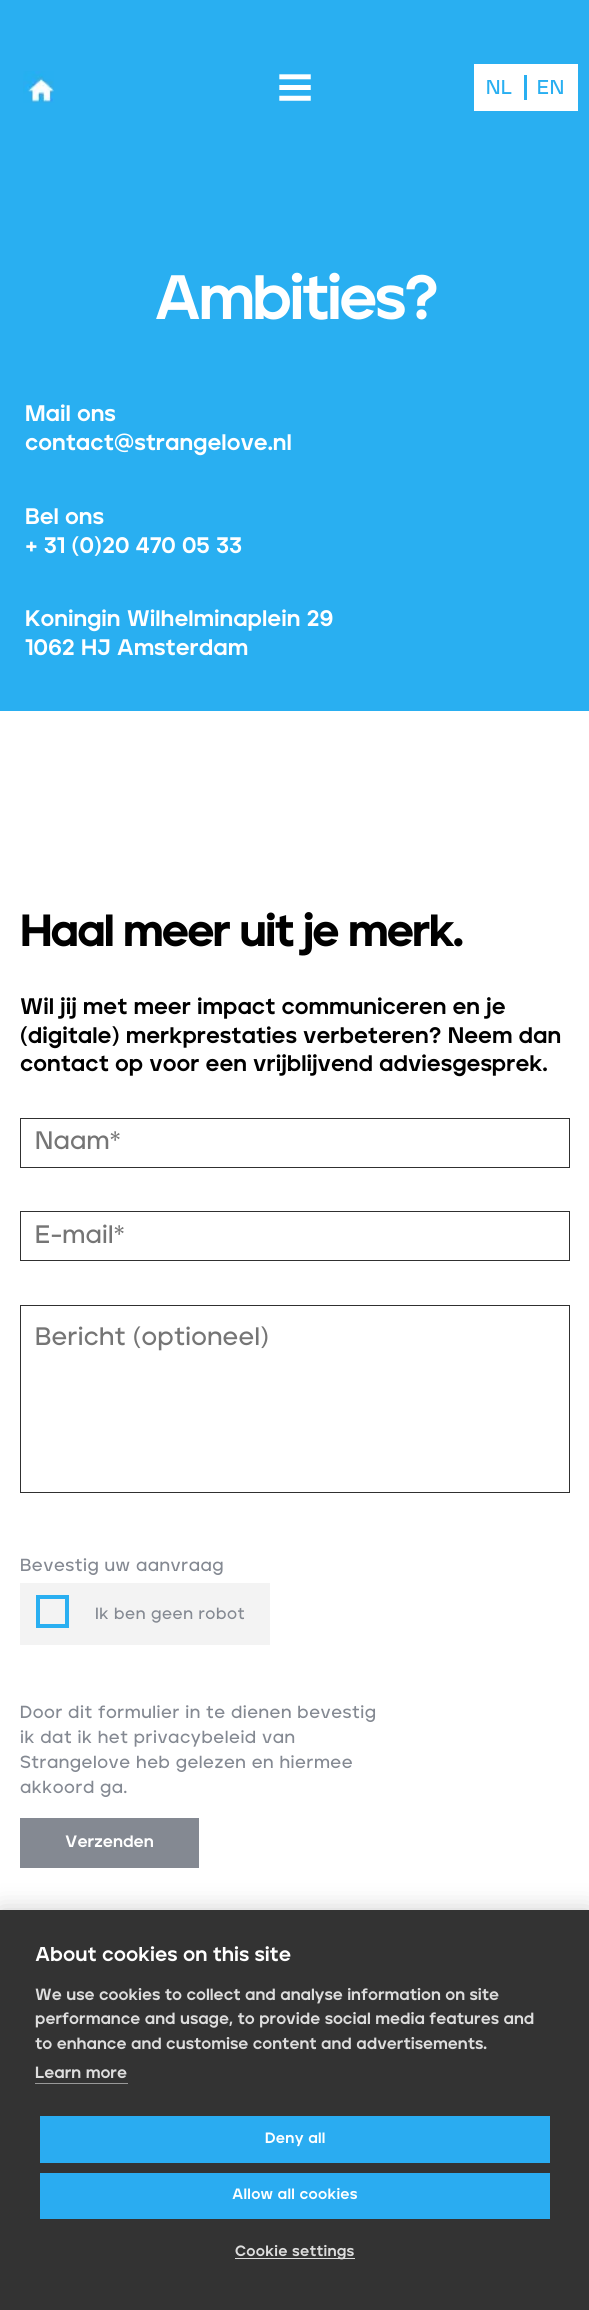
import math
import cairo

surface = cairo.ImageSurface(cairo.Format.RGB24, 589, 2310)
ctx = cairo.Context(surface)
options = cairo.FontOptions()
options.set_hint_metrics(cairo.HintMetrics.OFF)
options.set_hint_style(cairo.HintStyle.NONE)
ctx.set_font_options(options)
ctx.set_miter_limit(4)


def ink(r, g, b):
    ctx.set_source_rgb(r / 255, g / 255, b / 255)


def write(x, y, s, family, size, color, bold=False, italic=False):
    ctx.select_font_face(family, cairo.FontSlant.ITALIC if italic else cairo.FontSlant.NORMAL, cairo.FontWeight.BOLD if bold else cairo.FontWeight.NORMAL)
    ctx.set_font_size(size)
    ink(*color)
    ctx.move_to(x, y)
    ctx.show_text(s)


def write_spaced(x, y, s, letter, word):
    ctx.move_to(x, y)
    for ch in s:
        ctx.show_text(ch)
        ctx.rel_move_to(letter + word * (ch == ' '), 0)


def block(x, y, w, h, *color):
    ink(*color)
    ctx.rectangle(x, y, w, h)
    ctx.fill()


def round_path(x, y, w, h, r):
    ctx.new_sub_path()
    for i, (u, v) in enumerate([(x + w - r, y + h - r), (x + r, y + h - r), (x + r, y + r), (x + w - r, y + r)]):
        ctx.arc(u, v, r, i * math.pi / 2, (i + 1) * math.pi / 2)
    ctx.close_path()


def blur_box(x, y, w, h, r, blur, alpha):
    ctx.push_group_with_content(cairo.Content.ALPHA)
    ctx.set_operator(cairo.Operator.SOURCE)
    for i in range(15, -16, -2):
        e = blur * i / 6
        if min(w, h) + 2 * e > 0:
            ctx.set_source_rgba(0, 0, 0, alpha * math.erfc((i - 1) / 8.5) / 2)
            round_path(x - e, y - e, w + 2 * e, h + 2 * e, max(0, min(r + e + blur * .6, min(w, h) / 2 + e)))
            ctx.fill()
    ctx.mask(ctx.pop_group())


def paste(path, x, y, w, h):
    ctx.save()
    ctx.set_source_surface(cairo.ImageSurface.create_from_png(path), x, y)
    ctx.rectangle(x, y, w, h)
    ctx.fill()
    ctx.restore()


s1 = dict(family="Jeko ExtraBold", size=22.5, color=(255, 255, 255))
s2 = dict(family="Jeko ExtraBold", size=22.5, color=(0, 0, 0))
s3 = dict(family="Jeko ExtraBold", size=16.5, color=(255, 255, 255))
s4 = dict(family="Jeko ExtraBold", size=20, color=(255, 255, 255))
s5 = dict(family="Jeko ExtraBold", size=16.25, color=(221, 221, 221))

ink(255, 255, 255)
ctx.paint()
block(0, 0, 589, 711, 41, 175, 241)
paste("pic1.png", 23, 71, 31, 32)
paste("pic2.png", 279, 74, 32, 27)
block(474, 64, 104, 47, 255, 255, 255)
ctx.select_font_face("Jeko SemiBold")
ctx.set_font_size(20)
ink(41, 175, 241)
write_spaced(486, 94, "NL", 0.55, 0)
block(524, 75, 3, 25, 41, 175, 241)
write_spaced(537, 94, "EN", 0.55, 0)
ctx.select_font_face("Jeko ExtraBold")
ctx.set_font_size(62.5)
ink(255, 255, 255)
write_spaced(154, 319, "Ambities?", -3, 0)
write(25, 421, "Mail ons", **s1)
write(25, 450, "contact@strangelove.nl", **s1)
write(25, 524, "Bel ons", **s1)
write(25, 553, "+ 31 (0)20 470 05 33", **s1)
write(25, 626, "Koningin Wilhelminaplein 29", **s1)
write(25, 655, "1062 HJ Amsterdam", **s1)
ctx.select_font_face("Jeko Black")
ctx.set_font_size(45)
ink(0, 0, 0)
write_spaced(20, 946, "Haal meer uit je merk.", -2.2, 0)
write(20, 1014, "Wil jij met meer impact communiceren en je", **s2)
write(20, 1043, "(digitale) merkprestaties verbeteren? Neem dan", **s2)
write(20, 1071, "contact op voor een vrijblijvend adviesgesprek.", **s2)
ctx.rectangle(20.5, 1118.5, 549, 49)
ink(48, 48, 48)
ctx.set_line_width(1)
ctx.stroke()
ctx.select_font_face("Jeko SemiBold")
ctx.set_font_size(25.25)
ink(117, 117, 117)
write_spaced(35, 1149, "Naam*", 0.3, 0)
ctx.rectangle(20.5, 1211.5, 549, 49)
ink(48, 48, 48)
ctx.stroke()
ink(117, 117, 117)
write_spaced(35, 1243, "E-mail*", 0.3, 0)
ctx.rectangle(20.5, 1305.5, 549, 187)
ink(48, 48, 48)
ctx.stroke()
ink(117, 117, 117)
write_spaced(35, 1345, "Bericht (optioneel)", 0.3, 0)
ctx.set_font_size(17.5)
ink(132, 137, 146)
write_spaced(20, 1571, "Bevestig uw aanvraag", 0.55, 0)
block(20, 1583, 250, 62, 243, 243, 243)
ctx.rectangle(38, 1597, 29, 29)
ink(41, 175, 241)
ctx.set_line_width(4)
ctx.stroke()
ctx.set_font_size(16.25)
ink(132, 137, 146)
write_spaced(95, 1619, "Ik ben geen robot", 0.55, 0)
ctx.set_font_size(17.5)
write_spaced(20, 1718, "Door dit formulier in te dienen bevestig", 0.55, 0)
write_spaced(20, 1743, "ik dat ik het privacybeleid van", 0.55, 0)
write_spaced(20, 1768, "Strangelove heb gelezen en hiermee", 0.55, 0)
write_spaced(20, 1793, "akkoord ga.", 0.55, 0)
block(20, 1818, 179, 50, 132, 137, 146)
write(65, 1847, "Verzenden", **s3)
ink(0, 0, 0)
blur_box(0, 1910, 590, 400, 0, 12.5, 0.2)
block(0, 1910, 589, 400, 51, 51, 51)
write(35, 1961, "About cookies on this site", **s4)
write(35, 2000, "We use cookies to collect and analyse information on site", **s5)
write(35, 2024, "performance and usage, to provide social media features and", **s5)
write(35, 2049, "to enhance and customise content and advertisements.", **s5)
write(35, 2078, "Learn more", **s5)
block(35, 2083, 93, 1, 153, 153, 153)
block(40, 2116, 510, 47, 42, 172, 241)
ctx.set_font_size(15)
ink(255, 255, 255)
write_spaced(265, 2143, "Deny all", 0.25, 0)
block(40, 2173, 510, 46, 42, 172, 241)
ink(255, 255, 255)
write_spaced(232, 2199, "Allow all cookies", 0.25, 0)
block(235, 2258, 120, 1, 221, 221, 221)
write_spaced(235, 2256, "Cookie settings", 0.25, 0)
surface.write_to_png("screenshot.png")
